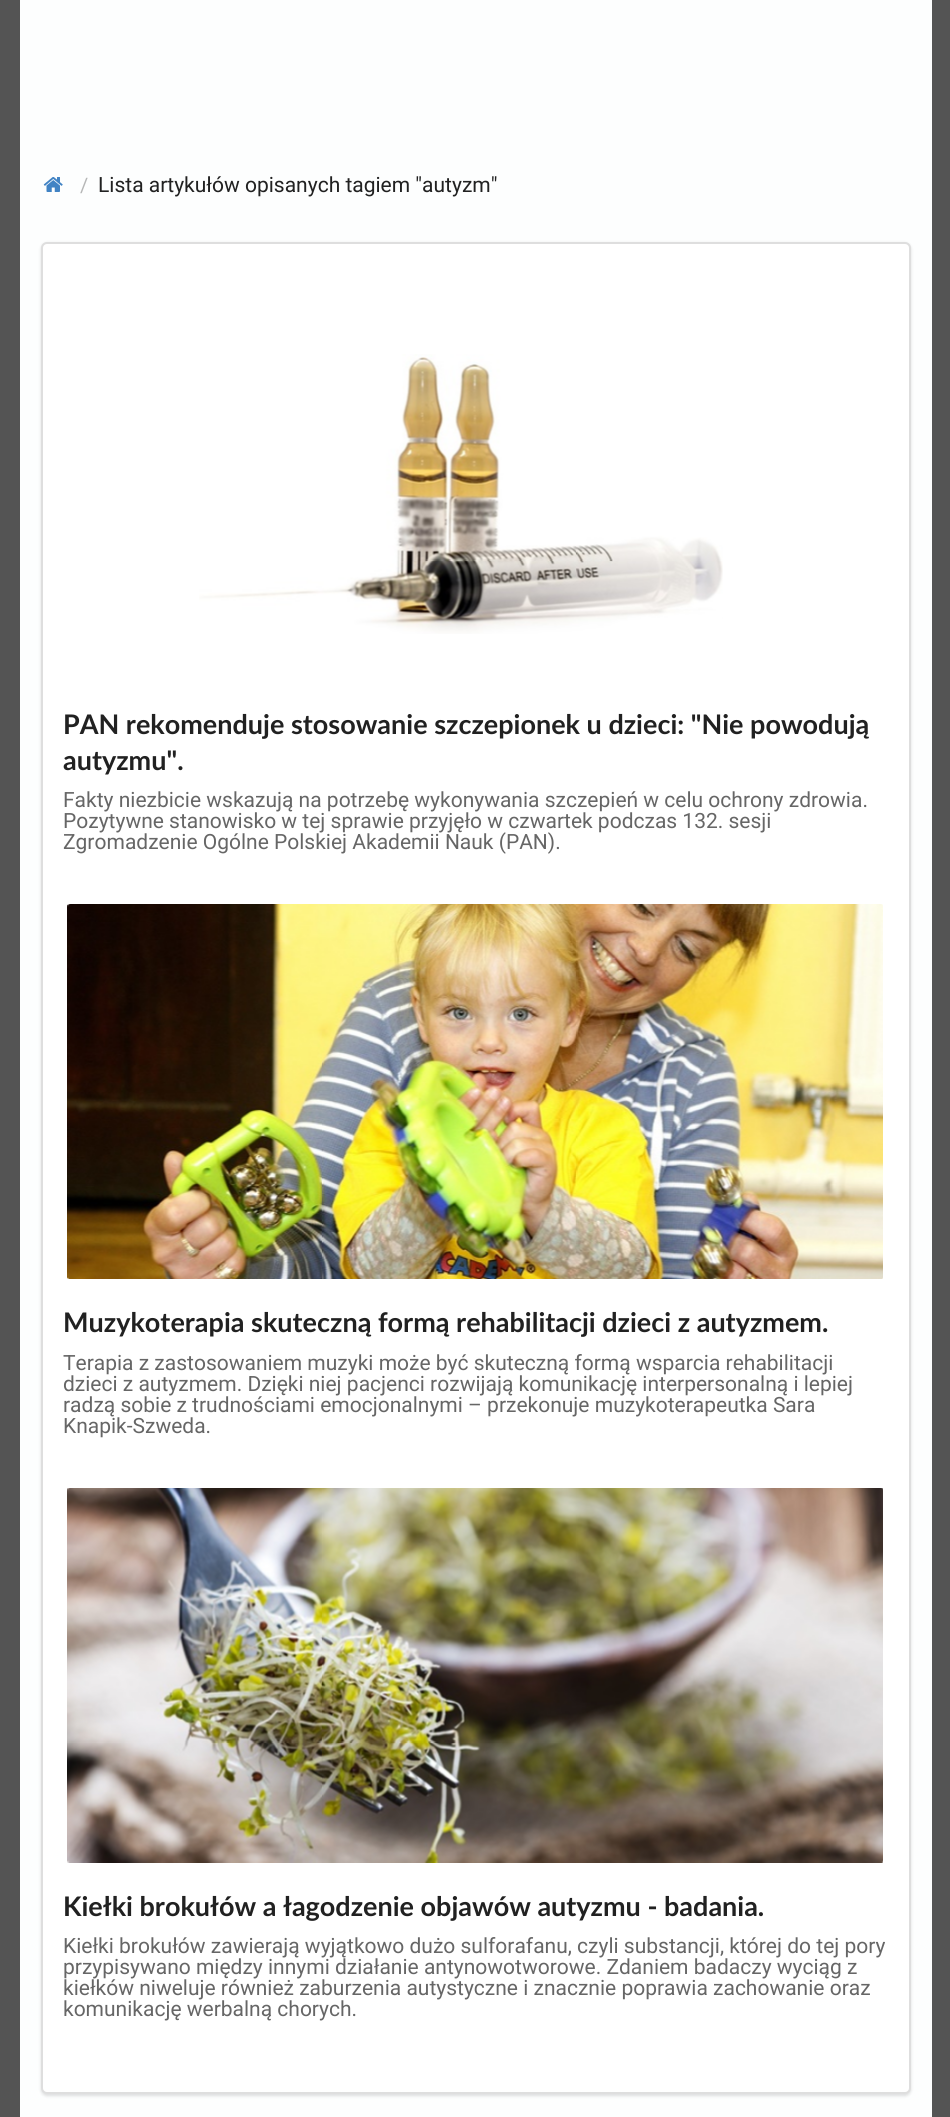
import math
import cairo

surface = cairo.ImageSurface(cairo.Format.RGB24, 950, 2117)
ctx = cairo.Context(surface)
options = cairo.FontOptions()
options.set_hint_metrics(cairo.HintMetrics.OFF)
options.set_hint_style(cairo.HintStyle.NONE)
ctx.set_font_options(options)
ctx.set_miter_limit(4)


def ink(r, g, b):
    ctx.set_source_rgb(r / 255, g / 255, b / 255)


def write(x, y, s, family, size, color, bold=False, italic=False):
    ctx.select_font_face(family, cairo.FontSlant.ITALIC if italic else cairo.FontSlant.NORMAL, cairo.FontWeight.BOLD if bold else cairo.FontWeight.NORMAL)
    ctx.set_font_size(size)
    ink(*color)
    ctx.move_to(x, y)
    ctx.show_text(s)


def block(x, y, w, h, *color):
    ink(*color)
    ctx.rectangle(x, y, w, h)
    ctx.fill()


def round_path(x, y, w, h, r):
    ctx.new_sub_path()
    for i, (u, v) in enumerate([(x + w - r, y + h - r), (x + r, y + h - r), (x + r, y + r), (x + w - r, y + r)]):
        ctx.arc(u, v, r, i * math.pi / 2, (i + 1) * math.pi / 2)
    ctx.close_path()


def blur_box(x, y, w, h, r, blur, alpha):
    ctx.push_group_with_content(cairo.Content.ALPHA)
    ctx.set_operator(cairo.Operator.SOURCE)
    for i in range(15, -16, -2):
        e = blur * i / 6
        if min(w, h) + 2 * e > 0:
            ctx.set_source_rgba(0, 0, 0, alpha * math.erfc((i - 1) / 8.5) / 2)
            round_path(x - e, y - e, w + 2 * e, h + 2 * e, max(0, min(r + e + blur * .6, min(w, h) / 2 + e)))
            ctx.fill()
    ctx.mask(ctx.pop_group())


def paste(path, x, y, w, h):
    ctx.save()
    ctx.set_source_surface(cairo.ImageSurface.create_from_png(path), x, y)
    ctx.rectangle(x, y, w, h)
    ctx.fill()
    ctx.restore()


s1 = dict(family="Roboto", size=20, color=(182, 183, 183))
s2 = dict(family="Roboto", size=21, color=(33, 33, 33))
s3 = dict(family="Lato", size=27, color=(33, 33, 33), bold=True)
s4 = dict(family="Roboto", size=21, color=(102, 102, 102))

ink(84, 84, 84)
ctx.paint()
block(20, 0, 912, 2117, 253, 254, 254)
paste("pic1.png", 43, 177, 20, 15)
write(80, 192, "/", **s1)
write(98, 192, "Lista artykułów opisanych tagiem \"autyzm\"", **s2)
ink(34, 36, 38)
blur_box(41, 243, 870, 1853, 6, 1.5, 0.15)
ink(255, 255, 255)
round_path(41, 242, 870, 1852, 6)
ctx.fill()
round_path(42, 243, 868, 1850, 5)
ctx.set_source_rgba(0.133, 0.141, 0.149, 0.15)
ctx.stroke()
paste("pic2.png", 199, 354, 524, 280)
write(63, 734, "PAN rekomenduje stosowanie szczepionek u dzieci: \"Nie powodują", **s3)
write(63, 770, "autyzmu\".", **s3)
write(63, 807, "Fakty niezbicie wskazują na potrzebę wykonywania szczepień w celu ochrony zdrowia.", **s4)
write(63, 828, "Pozytywne stanowisko w tej sprawie przyjęło w czwartek podczas 132. sesji", **s4)
write(63, 849, "Zgromadzenie Ogólne Polskiej Akademii Nauk (PAN).", **s4)
paste("pic3.png", 67, 904, 816, 375)
write(63, 1332, "Muzykoterapia skuteczną formą rehabilitacji dzieci z autyzmem.", **s3)
write(63, 1370, "Terapia z zastosowaniem muzyki może być skuteczną formą wsparcia rehabilitacji", **s4)
write(63, 1391, "dzieci z autyzmem. Dzięki niej pacjenci rozwijają komunikację interpersonalną i lepiej", **s4)
write(63, 1412, "radzą sobie z trudnościami emocjonalnymi – przekonuje muzykoterapeutka Sara", **s4)
write(63, 1433, "Knapik-Szweda.", **s4)
paste("pic4.png", 67, 1488, 816, 375)
write(63, 1916, "Kiełki brokułów a łagodzenie objawów autyzmu - badania.", **s3)
write(63, 1953, "Kiełki brokułów zawierają wyjątkowo dużo sulforafanu, czyli substancji, której do tej pory", **s4)
write(63, 1974, "przypisywano między innymi działanie antynowotworowe. Zdaniem badaczy wyciąg z", **s4)
write(63, 1995, "kiełków niweluje również zaburzenia autystyczne i znacznie poprawia zachowanie oraz", **s4)
write(63, 2016, "komunikację werbalną chorych.", **s4)
surface.write_to_png("screenshot.png")
